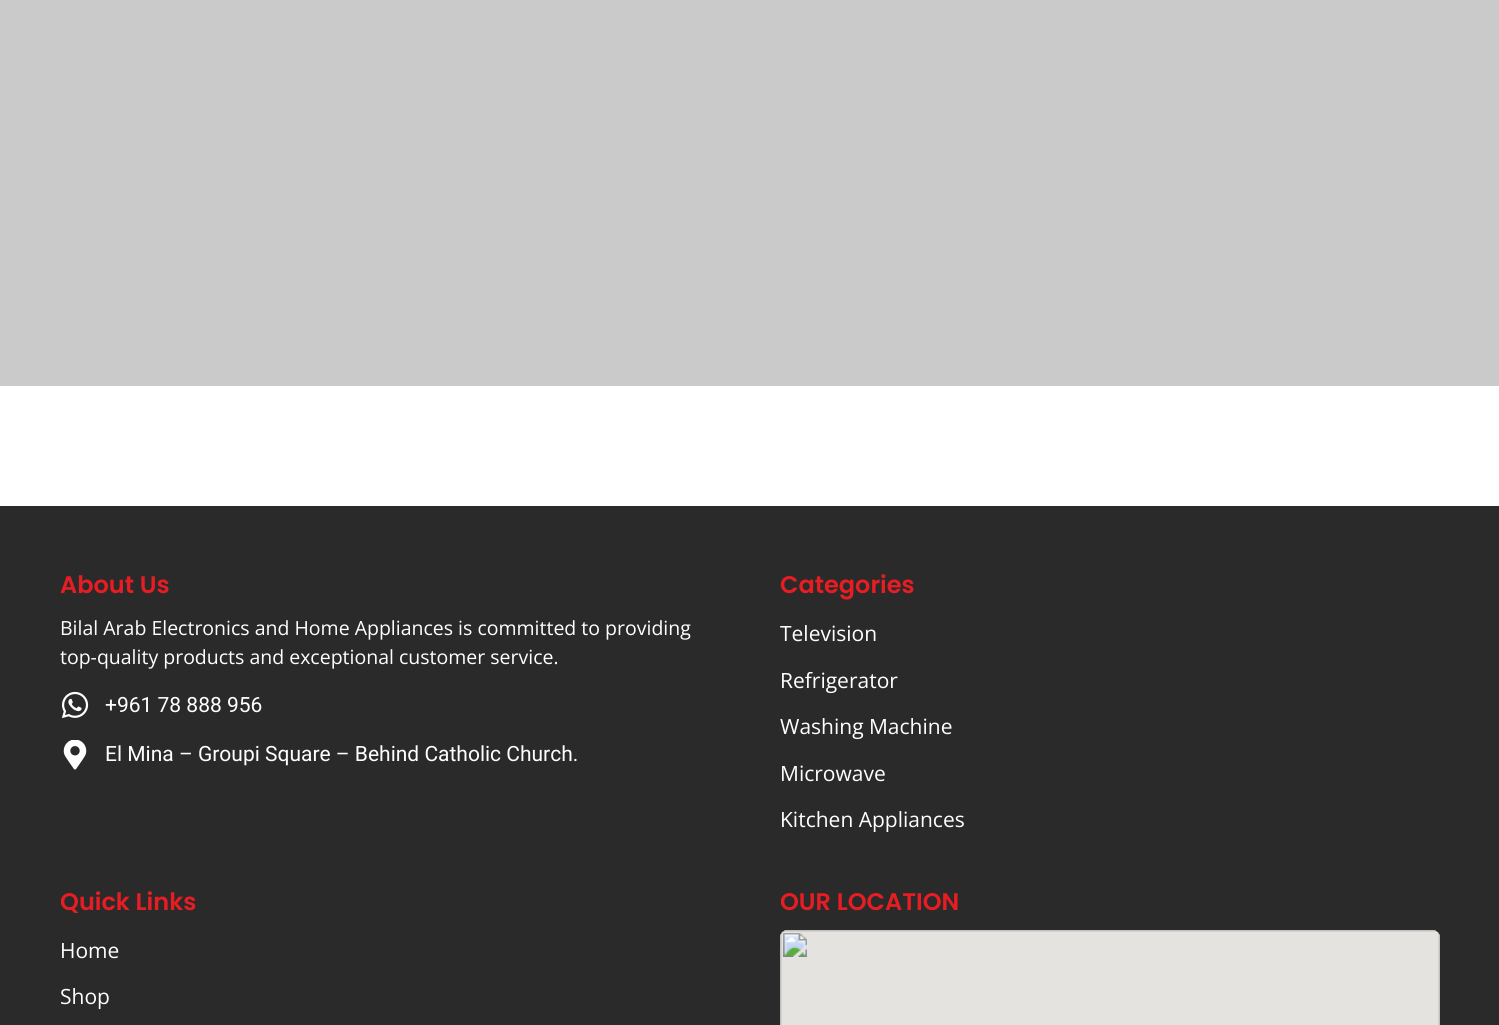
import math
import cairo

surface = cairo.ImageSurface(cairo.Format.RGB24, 1499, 1025)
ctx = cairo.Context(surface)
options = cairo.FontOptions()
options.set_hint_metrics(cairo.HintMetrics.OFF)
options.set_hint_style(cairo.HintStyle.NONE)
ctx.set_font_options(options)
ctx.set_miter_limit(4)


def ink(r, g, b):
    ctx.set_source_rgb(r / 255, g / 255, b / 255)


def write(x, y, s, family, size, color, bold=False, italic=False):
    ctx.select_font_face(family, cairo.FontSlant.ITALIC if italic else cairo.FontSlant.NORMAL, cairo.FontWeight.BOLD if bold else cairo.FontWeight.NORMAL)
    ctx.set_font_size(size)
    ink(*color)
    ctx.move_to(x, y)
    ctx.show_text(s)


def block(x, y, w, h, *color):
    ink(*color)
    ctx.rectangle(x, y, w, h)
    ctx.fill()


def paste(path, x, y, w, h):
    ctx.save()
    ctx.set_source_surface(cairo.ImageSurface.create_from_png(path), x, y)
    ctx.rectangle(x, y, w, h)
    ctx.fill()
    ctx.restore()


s1 = dict(family="Poppins SemiBold", size=24, color=(232, 29, 35))
s2 = dict(family="Open Sans", size=19.5, color=(255, 255, 255))
s3 = dict(family="Roboto", size=21, color=(255, 255, 255))
s4 = dict(family="Open Sans", size=21, color=(255, 255, 255))

ink(255, 255, 255)
ctx.paint()
block(0, 0, 1499, 386, 202, 202, 202)
block(0, 506, 1499, 519, 42, 42, 42)
write(60, 593, "About Us", **s1)
write(60, 635, "Bilal Arab Electronics and Home Appliances is committed to providing", **s2)
write(60, 664, "top-quality products and exceptional customer service.", **s2)
paste("pic1.png", 62, 691, 27, 27)
write(105, 712, "+961 78 888 956", **s3)
paste("pic2.png", 63, 740, 24, 30)
write(105, 761, "El Mina – Groupi Square – Behind Catholic Church.", **s3)
write(780, 593, "Categories", **s1)
write(780, 641, "Television", **s4)
write(780, 688, "Refrigerator", **s4)
write(780, 734, "Washing Machine", **s4)
write(780, 781, "Microwave", **s4)
write(780, 827, "Kitchen Appliances", **s4)
write(60, 910, "Quick Links", **s1)
write(60, 958, "Home", **s4)
write(60, 1004, "Shop", **s4)
write(780, 910, "OUR LOCATION", **s1)
paste("pic3.png", 780, 930, 660, 95)
surface.write_to_png("screenshot.png")
